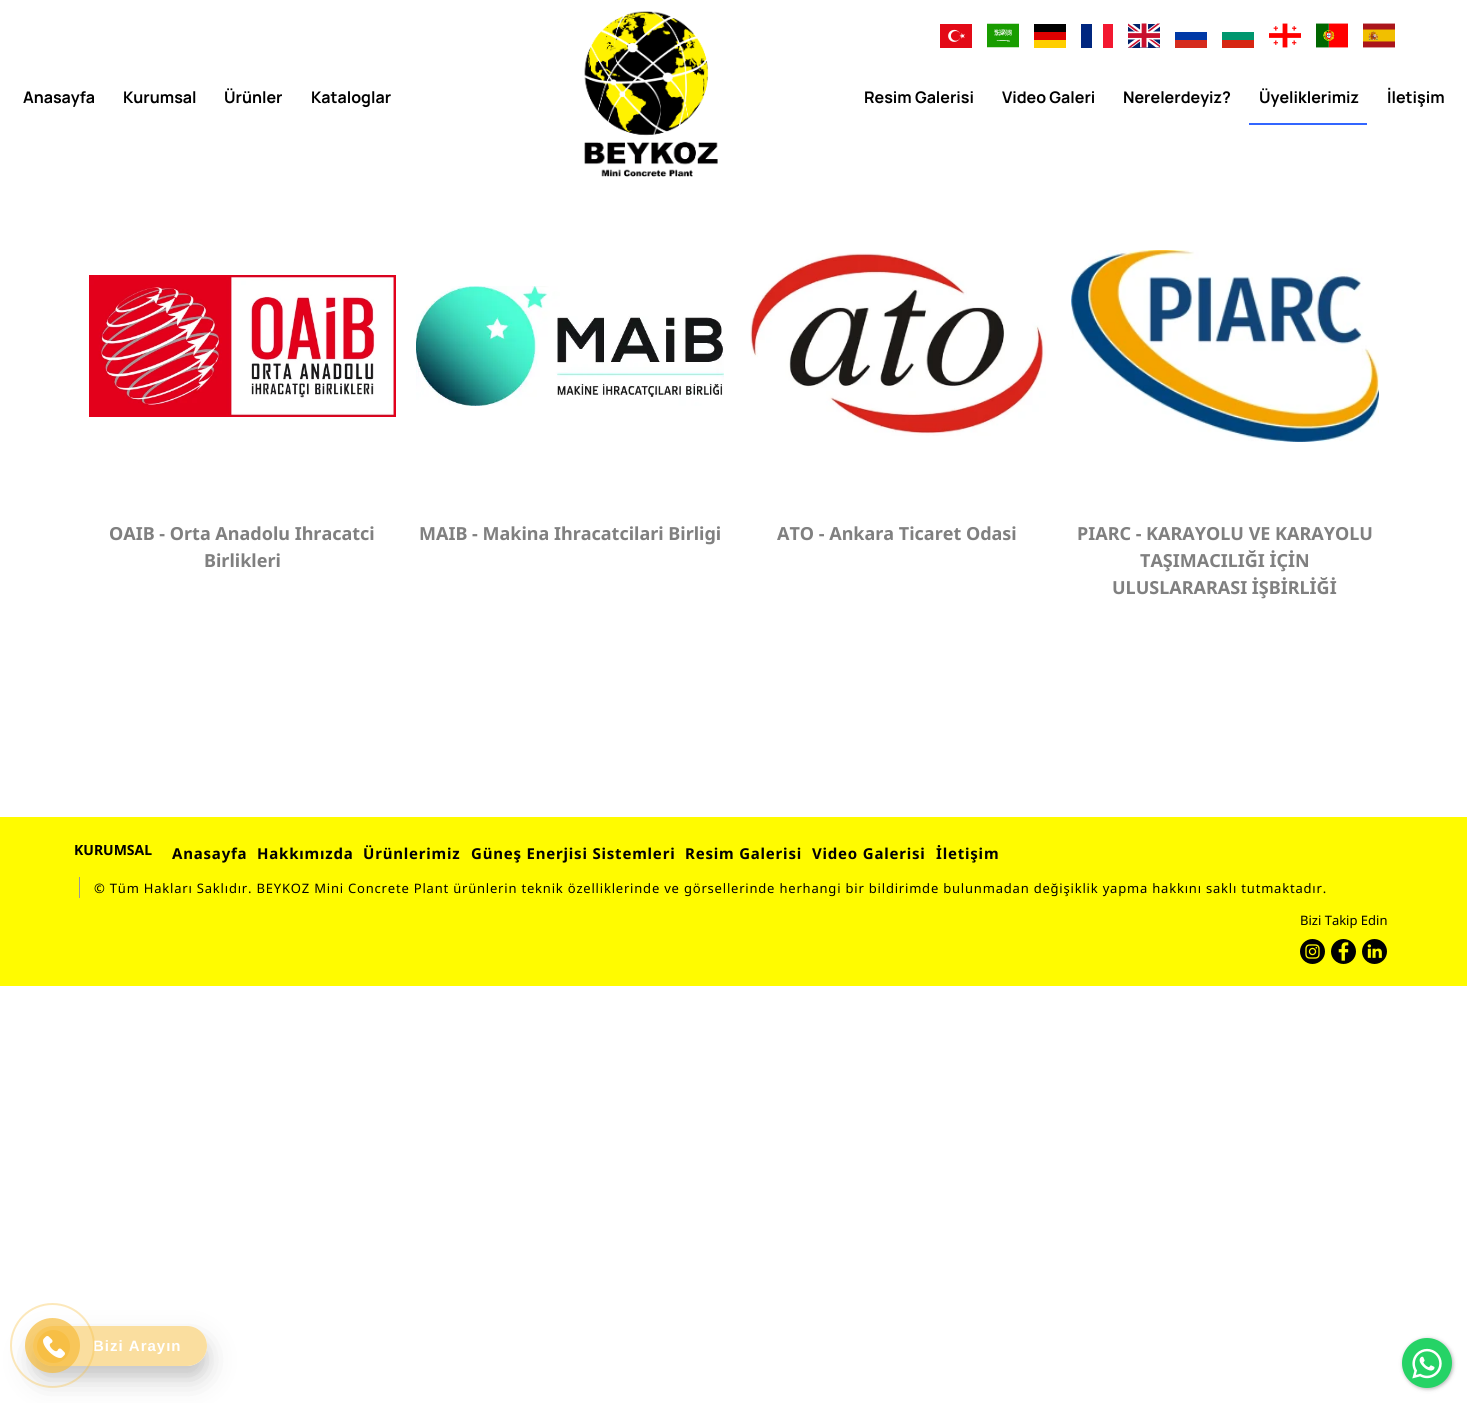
import math
import cairo

surface = cairo.ImageSurface(cairo.Format.RGB24, 1467, 1403)
ctx = cairo.Context(surface)
options = cairo.FontOptions()
options.set_hint_metrics(cairo.HintMetrics.OFF)
options.set_hint_style(cairo.HintStyle.NONE)
ctx.set_font_options(options)
ctx.set_miter_limit(4)


def ink(r, g, b):
    ctx.set_source_rgb(r / 255, g / 255, b / 255)


def write(x, y, s, family, size, color, bold=False, italic=False):
    ctx.select_font_face(family, cairo.FontSlant.ITALIC if italic else cairo.FontSlant.NORMAL, cairo.FontWeight.BOLD if bold else cairo.FontWeight.NORMAL)
    ctx.set_font_size(size)
    ink(*color)
    ctx.move_to(x, y)
    ctx.show_text(s)


def write_spaced(x, y, s, letter, word):
    ctx.move_to(x, y)
    for ch in s:
        ctx.show_text(ch)
        ctx.rel_move_to(letter + word * (ch == ' '), 0)


def block(x, y, w, h, *color):
    ink(*color)
    ctx.rectangle(x, y, w, h)
    ctx.fill()


def round_path(x, y, w, h, r):
    ctx.new_sub_path()
    for i, (u, v) in enumerate([(x + w - r, y + h - r), (x + r, y + h - r), (x + r, y + r), (x + w - r, y + r)]):
        ctx.arc(u, v, r, i * math.pi / 2, (i + 1) * math.pi / 2)
    ctx.close_path()


def blur_box(x, y, w, h, r, blur, alpha):
    ctx.push_group_with_content(cairo.Content.ALPHA)
    ctx.set_operator(cairo.Operator.SOURCE)
    for i in range(15, -16, -2):
        e = blur * i / 6
        if min(w, h) + 2 * e > 0:
            ctx.set_source_rgba(0, 0, 0, alpha * math.erfc((i - 1) / 8.5) / 2)
            round_path(x - e, y - e, w + 2 * e, h + 2 * e, max(0, min(r + e + blur * .6, min(w, h) / 2 + e)))
            ctx.fill()
    ctx.mask(ctx.pop_group())


def paste(path, x, y, w, h):
    ctx.save()
    ctx.set_source_surface(cairo.ImageSurface.create_from_png(path), x, y)
    ctx.rectangle(x, y, w, h)
    ctx.fill()
    ctx.restore()


s1 = dict(family="Manrope", size=16, color=(0, 0, 0), bold=True)
s2 = dict(family="Noto Sans", size=18, color=(128, 128, 128), bold=True)
s3 = dict(family="Noto Sans", size=14, color=(0, 0, 0), bold=True)
s4 = dict(family="Noto Sans", size=13, color=(0, 0, 0))

ink(255, 255, 255)
ctx.paint()
paste("pic1.png", 584, 11, 134, 166)
paste("pic2.png", 940, 24, 32, 24)
paste("pic3.png", 987, 23, 32, 25)
block(1034, 24, 32, 8, 0, 0, 0)
block(1034, 32, 32, 8, 221, 0, 0)
block(1034, 40, 32, 8, 255, 206, 0)
block(1081, 24, 11, 24, 0, 38, 127)
block(1103, 24, 10, 24, 243, 24, 48)
paste("pic4.png", 1128, 23, 32, 25)
block(1175, 32, 32, 8, 0, 57, 166)
block(1175, 40, 32, 8, 213, 43, 30)
block(1222, 32, 32, 8, 0, 150, 110)
block(1222, 40, 32, 8, 214, 38, 18)
paste("pic5.png", 1269, 23, 32, 25)
paste("pic6.png", 1316, 23, 32, 25)
paste("pic7.png", 1363, 23, 32, 25)
write(23, 103, "Anasayfa", **s1)
write(123, 103, "Kurumsal", **s1)
write(224, 103, "Ürünler", **s1)
write(311, 103, "Kataloglar", **s1)
write(864, 103, "Resim Galerisi", **s1)
write(1002, 103, "Video Galeri", **s1)
write(1123, 103, "Nerelerdeyiz?", **s1)
write(1259, 103, "Üyeliklerimiz", **s1)
block(1249, 123, 118, 2, 51, 102, 255)
write(1387, 103, "İletişim", **s1)
paste("pic8.png", 89, 275, 307, 142)
write(109, 540, "OAIB - Orta Anadolu Ihracatci", **s2)
write(204, 567, "Birlikleri", **s2)
paste("pic9.png", 416, 286, 308, 120)
write(419, 540, "MAIB - Makina Ihracatcilari Birligi", **s2)
paste("pic10.png", 750, 253, 296, 183)
write(777, 540, "ATO - Ankara Ticaret Odasi", **s2)
paste("pic11.png", 1071, 250, 308, 192)
write(1077, 540, "PIARC - KARAYOLU VE KARAYOLU", **s2)
write(1140, 567, "TAŞIMACILIĞI İÇİN", **s2)
write(1112, 594, "ULUSLARARASI İŞBİRLİĞİ", **s2)
block(0, 817, 1467, 169, 255, 251, 0)
write(74, 855, "KURUMSAL", **s3)
ctx.set_font_size(15)
write_spaced(172, 859, "Anasayfa", 0.8, 0)
write_spaced(257, 859, "Hakkımızda", 0.8, 0)
write_spaced(363, 859, "Ürünlerimiz", 0.8, 0)
write_spaced(471, 859, "Güneş Enerjisi Sistemleri", 0.8, 0)
write_spaced(685, 859, "Resim Galerisi", 0.8, 0)
write_spaced(812, 859, "Video Galerisi", 0.8, 0)
write_spaced(936, 859, "İletişim", 0.8, 0)
block(79, 877, 1, 21, 153, 153, 153)
ctx.select_font_face("Noto Sans")
ctx.set_font_size(13)
ink(0, 0, 0)
write_spaced(94, 893, "© Tüm Hakları Saklıdır. BEYKOZ Mini Concrete Plant ürünlerin teknik özelliklerinde ve görsellerinde herhangi bir bildirimde bulunmadan değişiklik yapma hakkını saklı tutmaktadır.", 0.8, 0)
write(1300, 925, "Bizi Takip Edin", **s4)
paste("pic12.png", 1300, 939, 25, 25)
paste("pic13.png", 1331, 939, 25, 25)
paste("pic14.png", 1362, 939, 25, 25)
ctx.save()
ctx.set_fill_rule(cairo.FillRule.EVEN_ODD)
ctx.new_path()
ctx.move_to(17, 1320)
ctx.line_to(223, 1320)
ctx.line_to(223, 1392)
ctx.line_to(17, 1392)
ctx.close_path()
ctx.move_to(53, 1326)
ctx.line_to(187, 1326)
ctx.curve_to(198, 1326, 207, 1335, 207, 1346)
ctx.curve_to(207, 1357, 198, 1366, 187, 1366)
ctx.line_to(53, 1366)
ctx.curve_to(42, 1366, 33, 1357, 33, 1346)
ctx.curve_to(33, 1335, 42, 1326, 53, 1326)
ctx.close_path()
ctx.clip()
ink(77, 77, 77)
blur_box(33, 1336, 174, 40, 20, 5, 0.1)
ctx.restore()
ctx.save()
ctx.set_fill_rule(cairo.FillRule.EVEN_ODD)
ctx.new_path()
ctx.move_to(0, 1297)
ctx.line_to(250, 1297)
ctx.line_to(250, 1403)
ctx.line_to(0, 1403)
ctx.close_path()
ctx.move_to(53, 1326)
ctx.line_to(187, 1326)
ctx.curve_to(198, 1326, 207, 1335, 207, 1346)
ctx.curve_to(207, 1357, 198, 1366, 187, 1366)
ctx.line_to(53, 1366)
ctx.curve_to(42, 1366, 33, 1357, 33, 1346)
ctx.curve_to(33, 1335, 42, 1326, 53, 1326)
ctx.close_path()
ctx.clip()
ink(77, 77, 77)
blur_box(33, 1340, 174, 40, 20, 14, 0.25)
ctx.restore()
ctx.set_source_rgba(0.976, 0.816, 0.467, 0.7)
round_path(33, 1326, 174, 40, 20)
ctx.fill()
ctx.select_font_face("Liberation Sans", cairo.FontSlant.NORMAL, cairo.FontWeight.BOLD)
ctx.set_font_size(15)
ink(255, 255, 255)
write_spaced(93, 1351, "Bizi Arayın", 1, 0)
ctx.new_path()
ctx.arc(52.5, 1345.5, 41.5, 0, 2 * math.pi)
ctx.set_source_rgba(0.969, 0.737, 0.235, 0.35)
ctx.stroke()
ctx.set_source_rgba(0.969, 0.737, 0.235, 0.7)
ctx.arc(52.5, 1345.5, 27.5, 0, 2 * math.pi)
ctx.fill()
ink(247, 191, 69)
ctx.arc(53.5, 1346.5, 16.5, 0, 2 * math.pi)
ctx.fill()
paste("pic15.png", 43, 1336, 22, 22)
ink(60, 60, 60)
blur_box(1403, 1339, 50, 50, 25, 2, 0.4)
paste("pic16.png", 1402, 1338, 50, 50)
surface.write_to_png("screenshot.png")
